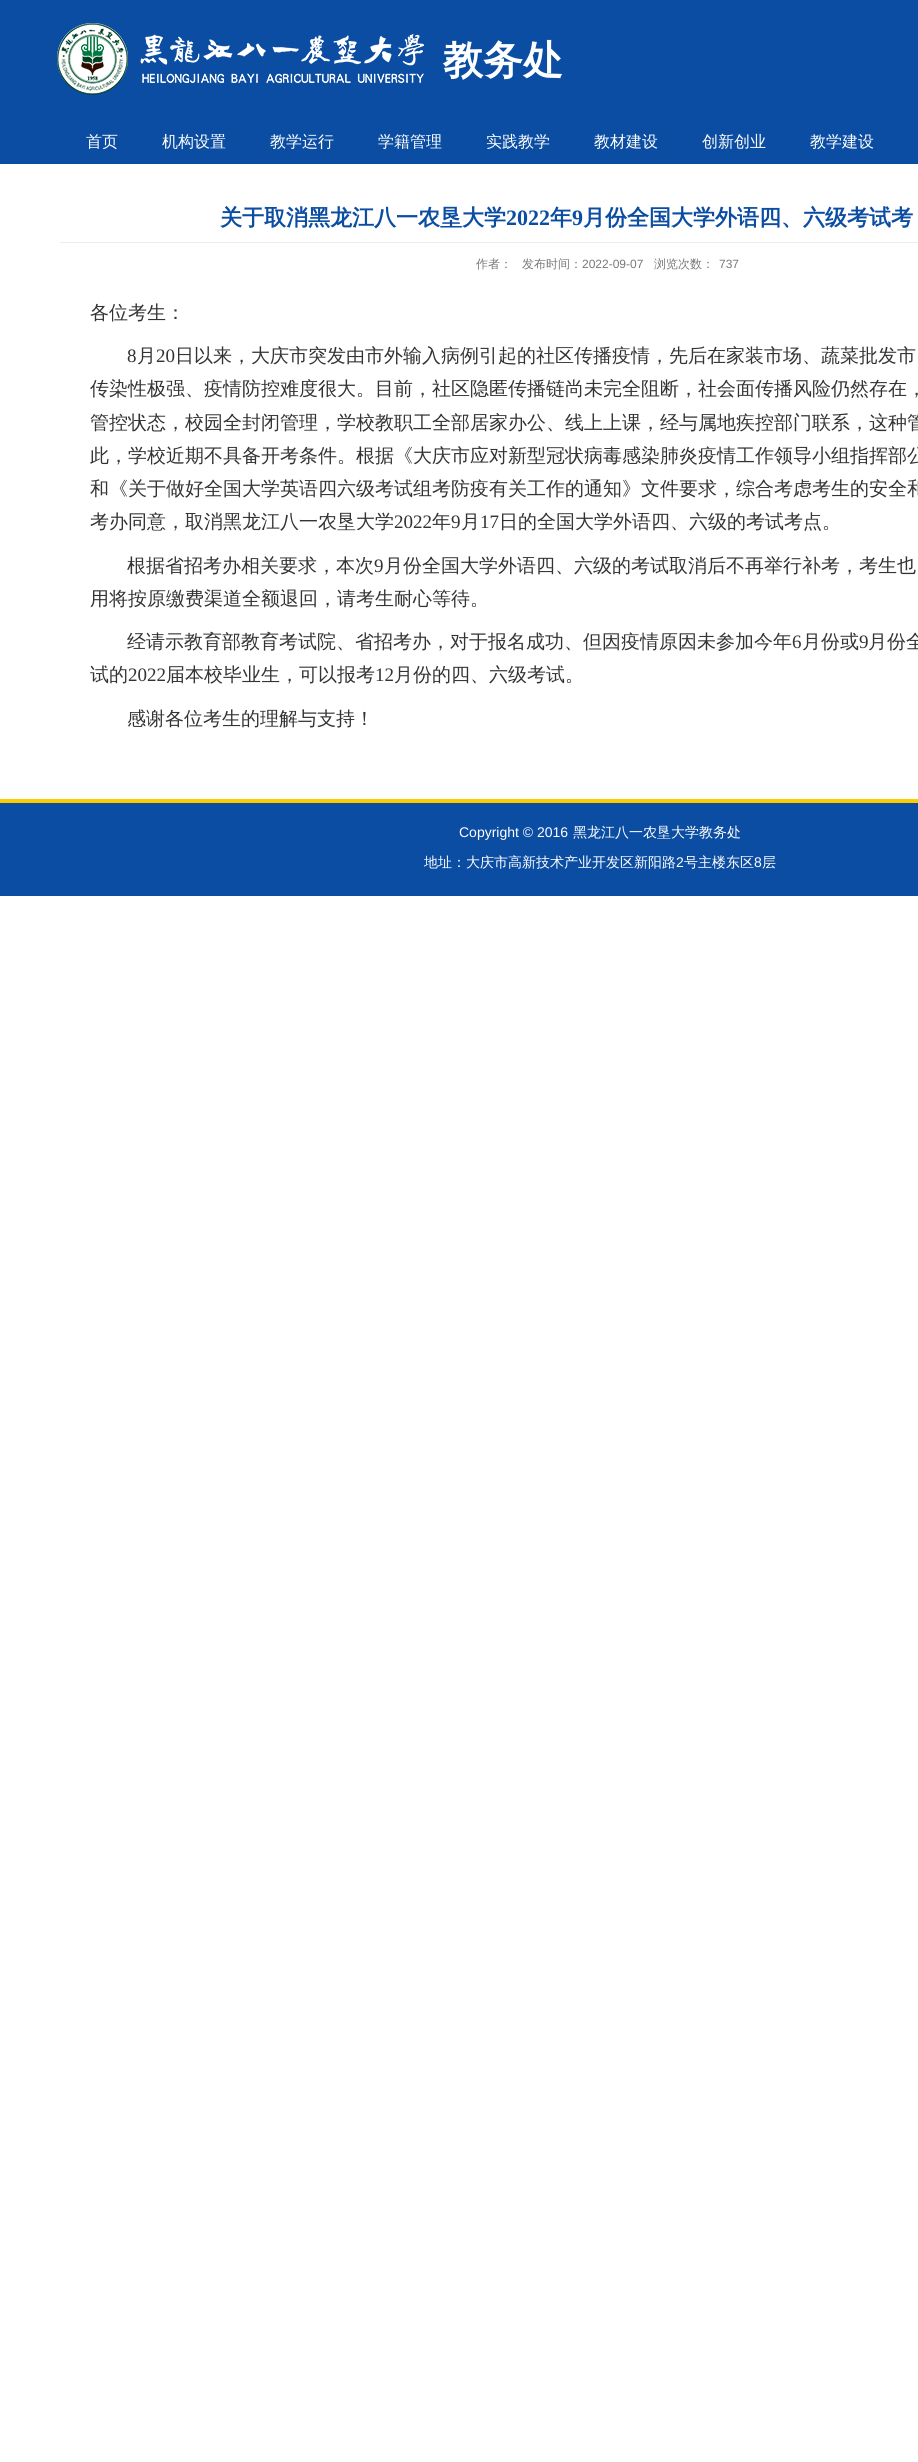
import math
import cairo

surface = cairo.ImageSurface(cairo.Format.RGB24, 918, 2462)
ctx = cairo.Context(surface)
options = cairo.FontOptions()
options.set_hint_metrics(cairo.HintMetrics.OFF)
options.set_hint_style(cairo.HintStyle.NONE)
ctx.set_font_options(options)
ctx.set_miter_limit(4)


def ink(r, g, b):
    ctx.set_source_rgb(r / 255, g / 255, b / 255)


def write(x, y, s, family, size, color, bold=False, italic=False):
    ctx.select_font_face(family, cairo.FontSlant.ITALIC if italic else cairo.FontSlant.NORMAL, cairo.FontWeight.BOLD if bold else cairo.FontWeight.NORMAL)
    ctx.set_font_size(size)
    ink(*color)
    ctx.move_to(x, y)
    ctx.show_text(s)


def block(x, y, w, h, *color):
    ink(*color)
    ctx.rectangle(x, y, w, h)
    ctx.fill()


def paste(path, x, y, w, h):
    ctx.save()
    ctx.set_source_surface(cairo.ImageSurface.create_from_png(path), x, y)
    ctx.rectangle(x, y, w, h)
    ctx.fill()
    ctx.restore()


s1 = dict(family="WenQuanYi Zen Hei", size=40, color=(255, 255, 255), bold=True)
s2 = dict(family="WenQuanYi Zen Hei Medium", size=16, color=(255, 255, 255))
s3 = dict(family="WenQuanYi Zen Hei", size=22, color=(11, 77, 162), bold=True)
s4 = dict(family="Liberation Serif", size=22, color=(11, 77, 162), bold=True)
s5 = dict(family="WenQuanYi Zen Hei Medium", size=12, color=(120, 120, 120))
s6 = dict(family="Liberation Sans", size=12, color=(120, 120, 120))
s7 = dict(family="WenQuanYi Zen Hei Medium", size=19, color=(51, 51, 51))
s8 = dict(family="Liberation Serif", size=19, color=(51, 51, 51))
s9 = dict(family="Liberation Sans", size=14, color=(255, 255, 255))
s10 = dict(family="WenQuanYi Zen Hei Medium", size=14, color=(255, 255, 255))

ink(255, 255, 255)
ctx.paint()
block(0, 0, 918, 164, 11, 77, 162)
paste("pic1.png", 57, 23, 367, 72)
write(443, 74, "教务处", **s1)
write(86, 147, "首页", **s2)
write(162, 147, "机构设置", **s2)
write(270, 147, "教学运行", **s2)
write(378, 147, "学籍管理", **s2)
write(486, 147, "实践教学", **s2)
write(594, 147, "教材建设", **s2)
write(702, 147, "创新创业", **s2)
write(810, 147, "教学建设", **s2)
write(220, 225, "关于取消黑龙江八一农垦大学", **s3)
write(506, 225, "2022", **s4)
write(550, 225, "年", **s3)
write(572, 225, "9", **s4)
write(583, 225, "月份全国大学外语四、六级考试考", **s3)
block(60, 242, 858, 1, 236, 236, 236)
write(476, 268, "作者：", **s5)
write(522, 268, "发布时间：", **s5)
write(582, 268, "2022-09-07", **s6)
write(654, 268, "浏览次数：", **s5)
write(719, 268, "737", **s6)
write(90, 319, "各位考生：", **s7)
write(127, 362, "8", **s8)
write(137, 362, "月", **s7)
write(156, 362, "20", **s8)
write(175, 362, "日以来，大庆市突发由市外输入病例引起的社区传播疫情，先后在家装市场、蔬菜批发市", **s7)
write(90, 395, "传染性极强、疫情防控难度很大。目前，社区隐匿传播链尚未完全阻断，社会面传播风险仍然存在，", **s7)
write(90, 429, "管控状态，校园全封闭管理，学校教职工全部居家办公、线上上课，经与属地疾控部门联系，这种管", **s7)
write(90, 462, "此，学校近期不具备开考条件。根据《大庆市应对新型冠状病毒感染肺炎疫情工作领导小组指挥部公", **s7)
write(90, 495, "和《关于做好全国大学英语四六级考试组考防疫有关工作的通知》文件要求，综合考虑考生的安全和", **s7)
write(90, 528, "考办同意，取消黑龙江八一农垦大学", **s7)
write(394, 528, "2022", **s8)
write(432, 528, "年", **s7)
write(451, 528, "9", **s8)
write(461, 528, "月", **s7)
write(480, 528, "17", **s8)
write(499, 528, "日的全国大学外语四、六级的考试考点。", **s7)
write(127, 572, "根据省招考办相关要求，本次", **s7)
write(374, 572, "9", **s8)
write(384, 572, "月份全国大学外语四、六级的考试取消后不再举行补考，考生也", **s7)
write(90, 605, "用将按原缴费渠道全额退回，请考生耐心等待。", **s7)
write(127, 648, "经请示教育部教育考试院、省招考办，对于报名成功、但因疫情原因未参加今年", **s7)
write(792, 648, "6", **s8)
write(802, 648, "月份或", **s7)
write(859, 648, "9", **s8)
write(868, 648, "月份全", **s7)
write(90, 681, "试的", **s7)
write(128, 681, "2022", **s8)
write(166, 681, "届本校毕业生，可以报考", **s7)
write(375, 681, "12", **s8)
write(394, 681, "月份的四、六级考试。", **s7)
write(127, 725, "感谢各位考生的理解与支持！", **s7)
block(0, 803, 918, 93, 11, 77, 162)
block(0, 799, 918, 4, 255, 204, 0)
write(459, 837, "Copyright © 2016", **s9)
write(573, 837, "黑龙江八一农垦大学教务处", **s10)
write(424, 867, "地址：大庆市高新技术产业开发区新阳路", **s10)
write(676, 867, "2", **s9)
write(684, 867, "号主楼东区", **s10)
write(754, 867, "8", **s9)
write(762, 867, "层", **s10)
surface.write_to_png("screenshot.png")
